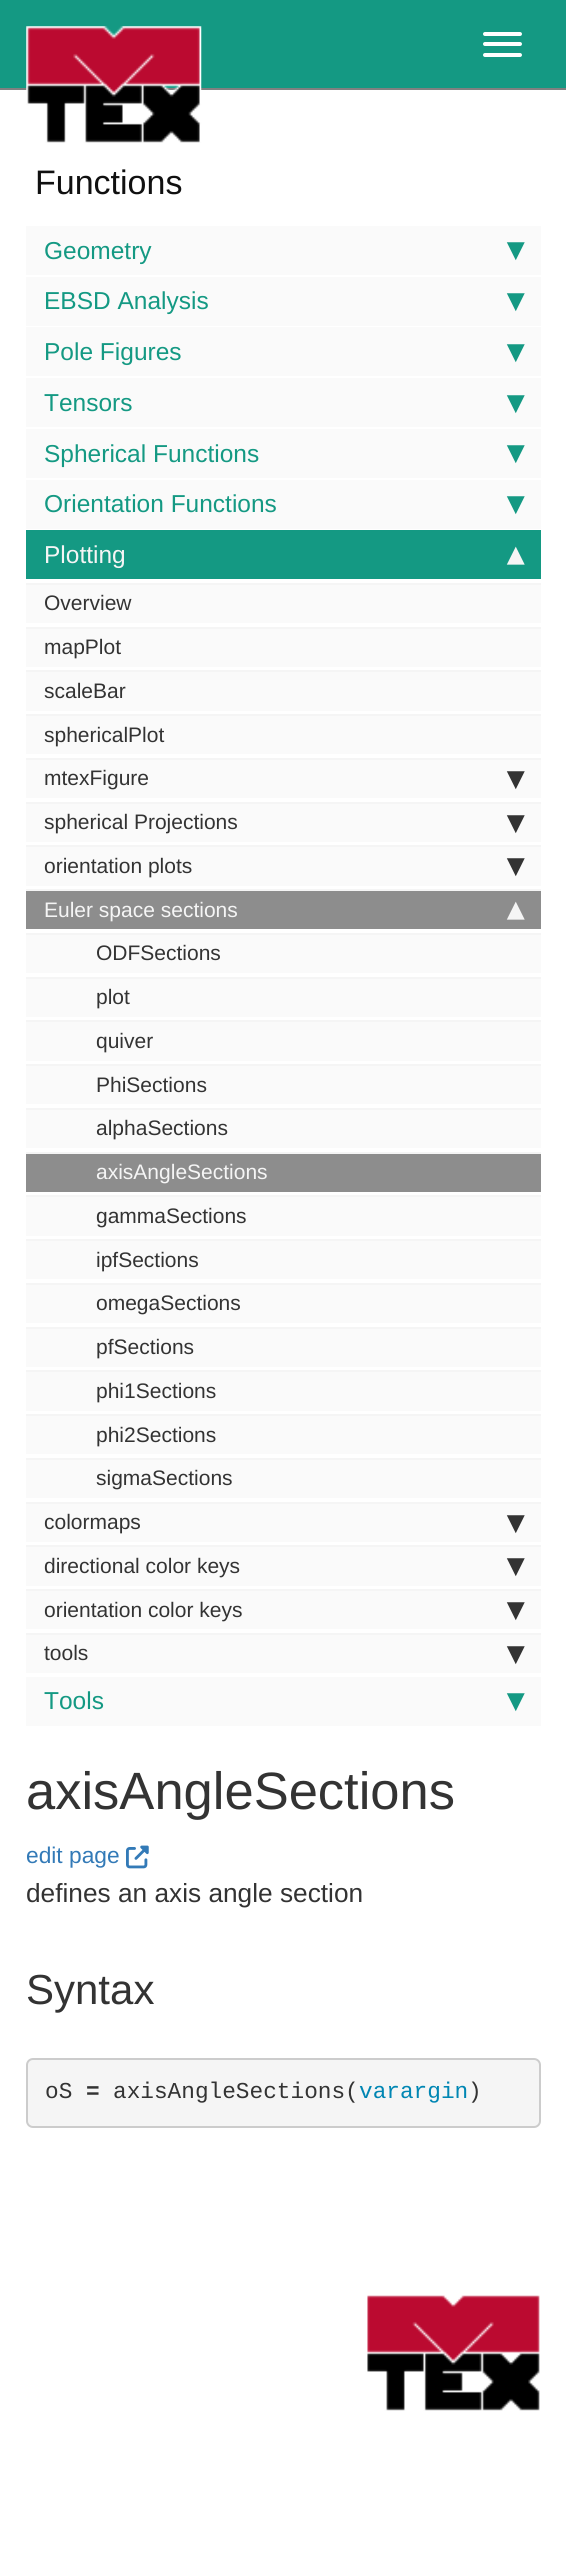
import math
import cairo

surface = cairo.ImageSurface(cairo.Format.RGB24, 566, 2550)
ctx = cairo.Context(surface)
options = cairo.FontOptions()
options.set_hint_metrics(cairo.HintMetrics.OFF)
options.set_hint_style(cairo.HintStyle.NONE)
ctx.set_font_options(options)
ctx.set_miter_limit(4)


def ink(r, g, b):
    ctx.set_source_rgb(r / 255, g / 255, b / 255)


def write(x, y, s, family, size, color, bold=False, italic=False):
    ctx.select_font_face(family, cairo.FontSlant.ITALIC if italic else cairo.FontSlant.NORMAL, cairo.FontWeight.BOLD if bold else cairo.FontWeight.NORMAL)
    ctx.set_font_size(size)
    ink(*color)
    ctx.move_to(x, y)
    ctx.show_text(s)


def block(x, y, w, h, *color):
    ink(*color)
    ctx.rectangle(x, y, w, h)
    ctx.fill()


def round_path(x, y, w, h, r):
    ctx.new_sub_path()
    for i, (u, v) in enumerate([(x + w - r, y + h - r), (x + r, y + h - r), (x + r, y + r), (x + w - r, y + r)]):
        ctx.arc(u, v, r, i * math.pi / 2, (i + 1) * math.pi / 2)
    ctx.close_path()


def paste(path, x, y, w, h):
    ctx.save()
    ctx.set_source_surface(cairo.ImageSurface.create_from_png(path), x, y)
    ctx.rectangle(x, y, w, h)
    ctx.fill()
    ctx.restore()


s1 = dict(family="Liberation Sans", size=34, color=(16, 16, 16))
s2 = dict(family="Liberation Sans", size=24.5, color=(20, 153, 131))
s3 = dict(family="DejaVu Sans", size=33, color=(20, 153, 131), bold=True)
s4 = dict(family="Liberation Sans", size=24.5, color=(245, 245, 245))
s5 = dict(family="DejaVu Sans", size=33, color=(245, 245, 245), bold=True)
s6 = dict(family="Liberation Sans", size=21, color=(51, 51, 51))
s7 = dict(family="DejaVu Sans", size=33, color=(51, 51, 51), bold=True)
s8 = dict(family="Liberation Sans", size=21, color=(245, 245, 245))
s9 = dict(family="Liberation Sans", size=52.5, color=(51, 51, 51))
s10 = dict(family="Liberation Sans", size=22.75, color=(51, 122, 183))
s11 = dict(family="Liberation Sans", size=26.25, color=(51, 51, 51))
s12 = dict(family="Liberation Sans", size=42, color=(51, 51, 51))
s13 = dict(family="Liberation Mono", size=22.75, color=(51, 51, 51))
s14 = dict(family="Liberation Mono", size=22.75, color=(51, 51, 51), bold=True)
s15 = dict(family="Liberation Mono", size=22.75, color=(0, 134, 179))

ink(255, 255, 255)
ctx.paint()
block(0, 0, 566, 88, 20, 153, 131)
block(0, 88, 566, 2, 128, 128, 128)
paste("pic1.png", 26, 26, 176, 117)
ink(255, 255, 255)
round_path(483, 32, 39, 4, 2)
ctx.fill()
round_path(483, 42, 39, 4, 2)
ctx.fill()
round_path(483, 53, 39, 4, 2)
ctx.fill()
write(35, 194, "Functions", **s1)
block(26, 226, 515, 49, 250, 250, 250)
write(44, 259, "Geometry", **s2)
write(507, 260, "▾", **s3)
block(26, 277, 515, 49, 250, 250, 250)
write(44, 309, "EBSD Analysis", **s2)
write(507, 311, "▾", **s3)
block(26, 327, 515, 49, 250, 250, 250)
write(44, 360, "Pole Figures", **s2)
write(507, 362, "▾", **s3)
block(26, 378, 515, 49, 250, 250, 250)
write(44, 411, "Tensors", **s2)
write(507, 413, "▾", **s3)
block(26, 429, 515, 49, 250, 250, 250)
write(44, 462, "Spherical Functions", **s2)
write(507, 463, "▾", **s3)
block(26, 480, 515, 49, 250, 250, 250)
write(44, 512, "Orientation Functions", **s2)
write(507, 514, "▾", **s3)
block(26, 530, 515, 49, 20, 153, 131)
write(44, 563, "Plotting", **s4)
write(507, 565, "▴", **s5)
block(26, 585, 515, 38, 250, 250, 250)
block(26, 583, 515, 2, 245, 245, 245)
write(44, 610, "Overview", **s6)
block(26, 629, 515, 38, 250, 250, 250)
block(26, 627, 515, 2, 245, 245, 245)
write(44, 654, "mapPlot", **s6)
block(26, 672, 515, 39, 250, 250, 250)
block(26, 670, 515, 2, 245, 245, 245)
write(44, 698, "scaleBar", **s6)
block(26, 716, 515, 38, 250, 250, 250)
block(26, 714, 515, 2, 245, 245, 245)
write(44, 742, "sphericalPlot", **s6)
block(26, 760, 515, 38, 250, 250, 250)
block(26, 758, 515, 2, 245, 245, 245)
write(44, 785, "mtexFigure", **s6)
write(507, 789, "▾", **s7)
block(26, 804, 515, 38, 250, 250, 250)
block(26, 802, 515, 2, 245, 245, 245)
write(44, 829, "spherical Projections", **s6)
write(507, 833, "▾", **s7)
block(26, 847, 515, 39, 250, 250, 250)
block(26, 845, 515, 2, 245, 245, 245)
write(44, 873, "orientation plots", **s6)
write(507, 876, "▾", **s7)
block(26, 891, 515, 38, 141, 141, 141)
block(26, 889, 515, 2, 245, 245, 245)
write(44, 917, "Euler space sections", **s8)
write(507, 920, "▴", **s5)
block(26, 935, 515, 38, 250, 250, 250)
block(26, 933, 515, 2, 245, 245, 245)
write(96, 960, "ODFSections", **s6)
block(26, 979, 515, 38, 250, 250, 250)
block(26, 977, 515, 2, 245, 245, 245)
write(96, 1004, "plot", **s6)
block(26, 1022, 515, 39, 250, 250, 250)
block(26, 1020, 515, 2, 245, 245, 245)
write(96, 1048, "quiver", **s6)
block(26, 1066, 515, 38, 250, 250, 250)
block(26, 1064, 515, 2, 245, 245, 245)
write(96, 1092, "PhiSections", **s6)
block(26, 1110, 515, 38, 250, 250, 250)
block(26, 1108, 515, 2, 245, 245, 245)
write(96, 1135, "alphaSections", **s6)
block(26, 1154, 515, 38, 141, 141, 141)
block(26, 1152, 515, 2, 245, 245, 245)
write(96, 1179, "axisAngleSections", **s8)
block(26, 1197, 515, 39, 250, 250, 250)
block(26, 1195, 515, 2, 245, 245, 245)
write(96, 1223, "gammaSections", **s6)
block(26, 1241, 515, 38, 250, 250, 250)
block(26, 1239, 515, 2, 245, 245, 245)
write(96, 1267, "ipfSections", **s6)
block(26, 1285, 515, 38, 250, 250, 250)
block(26, 1283, 515, 2, 245, 245, 245)
write(96, 1310, "omegaSections", **s6)
block(26, 1329, 515, 38, 250, 250, 250)
block(26, 1327, 515, 2, 245, 245, 245)
write(96, 1354, "pfSections", **s6)
block(26, 1372, 515, 39, 250, 250, 250)
block(26, 1370, 515, 2, 245, 245, 245)
write(96, 1398, "phi1Sections", **s6)
block(26, 1416, 515, 38, 250, 250, 250)
block(26, 1414, 515, 2, 245, 245, 245)
write(96, 1442, "phi2Sections", **s6)
block(26, 1460, 515, 38, 250, 250, 250)
block(26, 1458, 515, 2, 245, 245, 245)
write(96, 1485, "sigmaSections", **s6)
block(26, 1504, 515, 38, 250, 250, 250)
block(26, 1502, 515, 2, 245, 245, 245)
write(44, 1529, "colormaps", **s6)
write(507, 1533, "▾", **s7)
block(26, 1547, 515, 39, 250, 250, 250)
block(26, 1545, 515, 2, 245, 245, 245)
write(44, 1573, "directional color keys", **s6)
write(507, 1576, "▾", **s7)
block(26, 1591, 515, 38, 250, 250, 250)
block(26, 1589, 515, 2, 245, 245, 245)
write(44, 1617, "orientation color keys", **s6)
write(507, 1620, "▾", **s7)
block(26, 1635, 515, 38, 250, 250, 250)
block(26, 1633, 515, 2, 245, 245, 245)
write(44, 1660, "tools", **s6)
write(507, 1664, "▾", **s7)
block(26, 1677, 515, 49, 250, 250, 250)
write(44, 1709, "Tools", **s2)
write(507, 1711, "▾", **s3)
write(26, 1809, "axisAngleSections", **s9)
write(26, 1863, "edit page", **s10)
paste("pic2.png", 126, 1845, 23, 24)
write(26, 1902, "defines an axis angle section", **s11)
write(26, 2004, "Syntax", **s12)
ink(245, 245, 245)
round_path(27, 2059, 513, 68, 6)
ctx.fill_preserve()
ink(204, 204, 204)
ctx.stroke()
write(45, 2098, "oS", **s13)
write(86, 2098, "=", **s14)
write(113, 2098, "axisAngleSections(", **s13)
write(359, 2098, "varargin", **s15)
write(468, 2098, ")", **s13)
paste("pic3.png", 367, 2295, 173, 116)
surface.write_to_png("screenshot.png")
